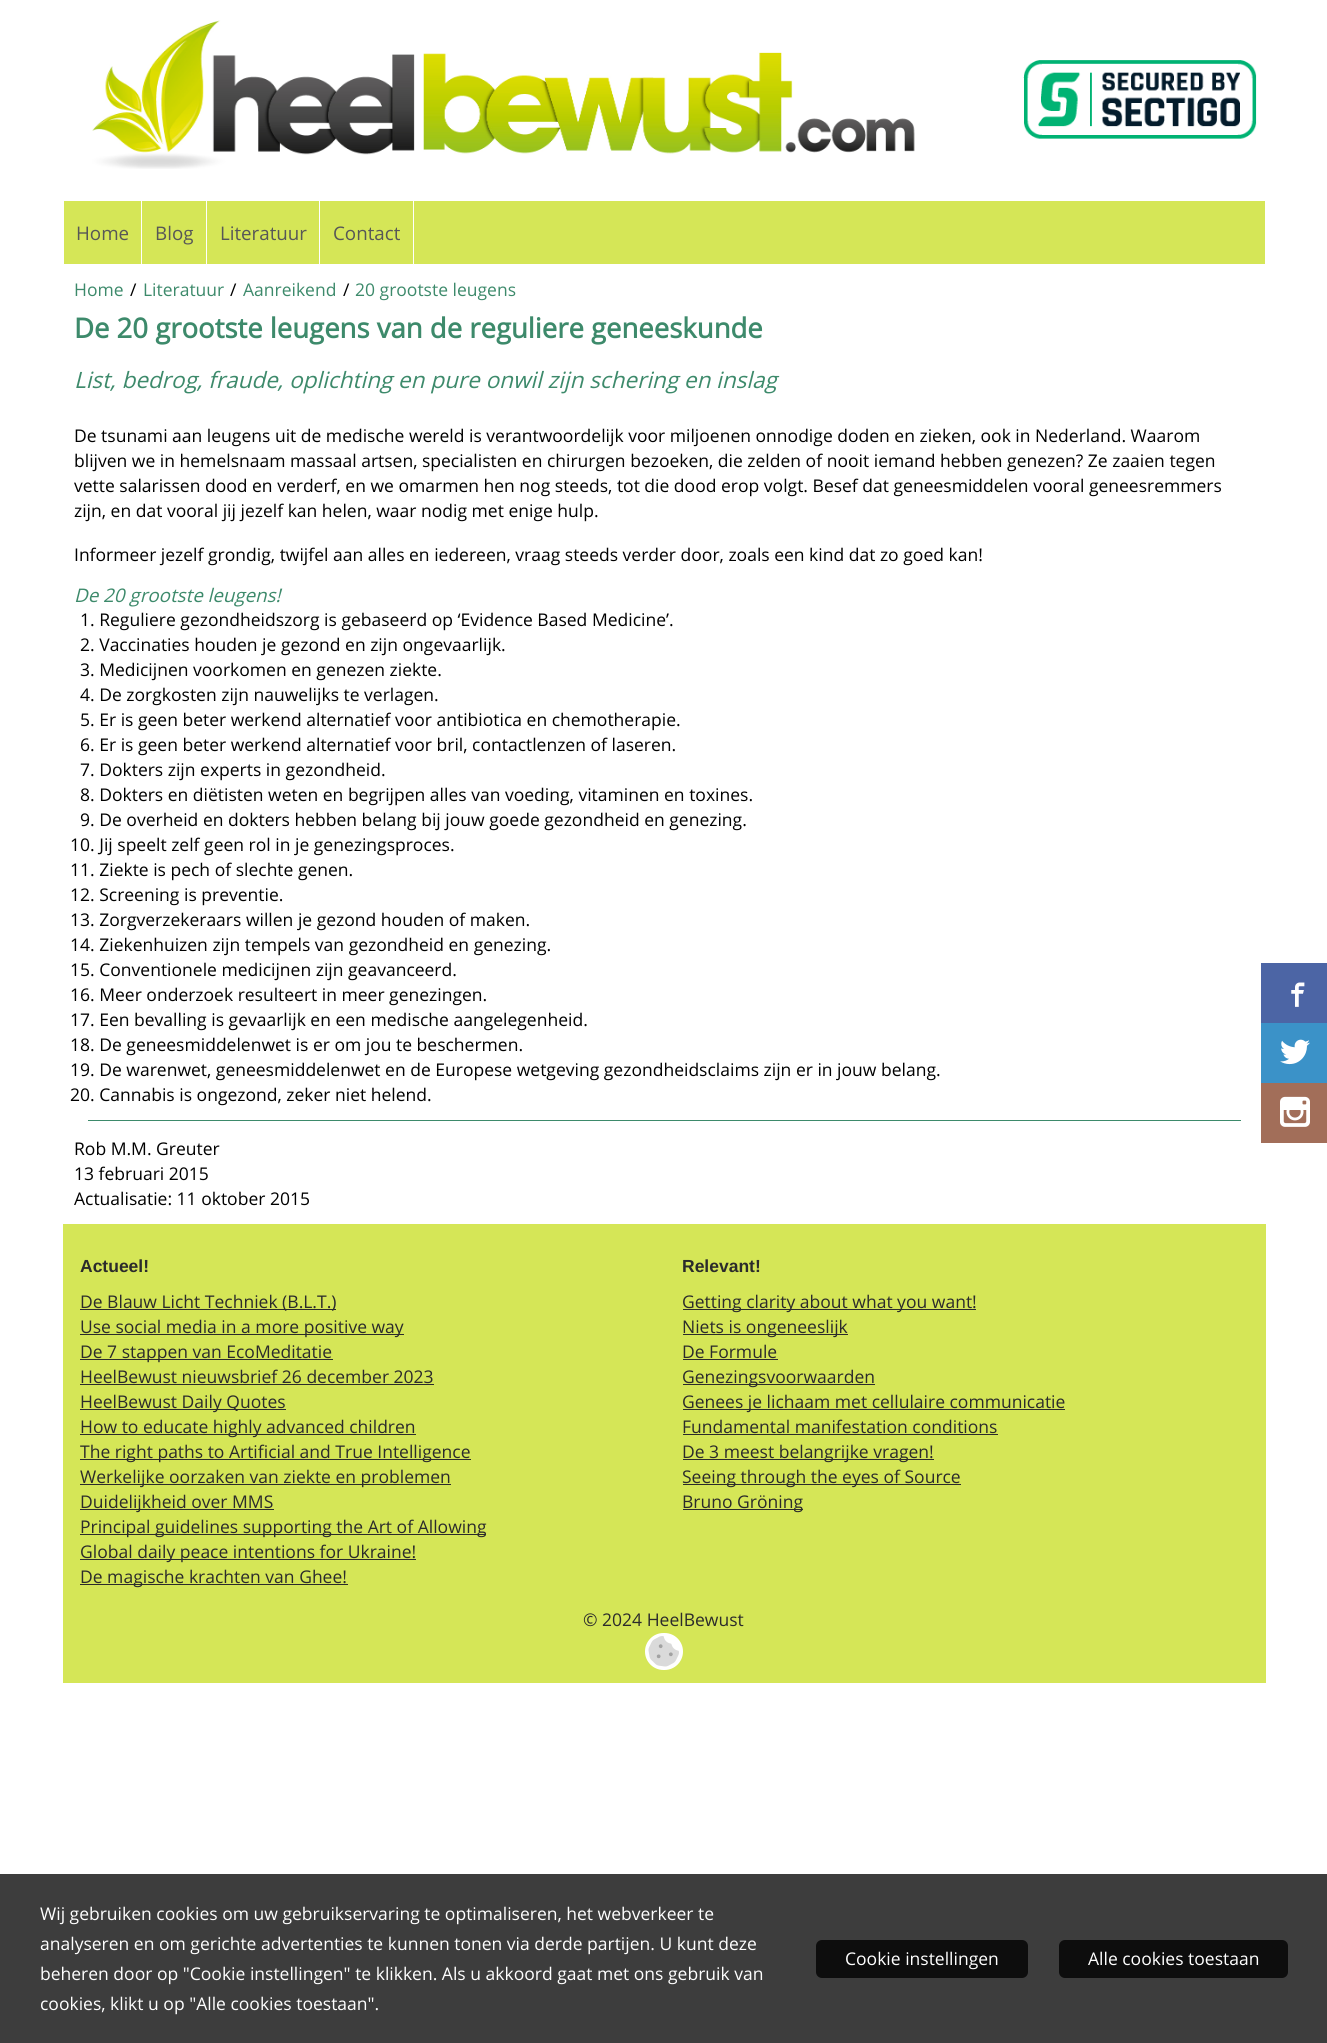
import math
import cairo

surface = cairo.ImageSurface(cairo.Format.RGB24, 1327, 2043)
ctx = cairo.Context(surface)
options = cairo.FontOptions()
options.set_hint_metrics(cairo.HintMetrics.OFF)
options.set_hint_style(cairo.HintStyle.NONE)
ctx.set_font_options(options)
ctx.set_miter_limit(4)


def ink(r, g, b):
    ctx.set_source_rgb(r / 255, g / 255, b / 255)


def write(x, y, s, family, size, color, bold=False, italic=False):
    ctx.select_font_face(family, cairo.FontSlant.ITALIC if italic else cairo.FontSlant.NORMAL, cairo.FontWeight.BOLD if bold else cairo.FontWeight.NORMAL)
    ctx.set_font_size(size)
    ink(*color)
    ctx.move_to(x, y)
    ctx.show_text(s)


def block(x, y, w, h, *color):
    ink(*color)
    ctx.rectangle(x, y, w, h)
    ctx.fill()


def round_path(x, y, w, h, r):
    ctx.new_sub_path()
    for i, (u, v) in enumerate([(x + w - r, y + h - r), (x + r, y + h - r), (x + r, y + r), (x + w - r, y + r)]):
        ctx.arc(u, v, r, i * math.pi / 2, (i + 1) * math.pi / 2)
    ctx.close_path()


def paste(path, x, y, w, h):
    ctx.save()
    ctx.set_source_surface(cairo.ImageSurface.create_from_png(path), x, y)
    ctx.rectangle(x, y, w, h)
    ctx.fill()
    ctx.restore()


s1 = dict(family="Open Sans", size=18.75, color=(87, 87, 87))
s2 = dict(family="Open Sans", size=17.5, color=(61, 138, 107))
s3 = dict(family="Open Sans", size=17.5, color=(0, 0, 0))
s4 = dict(family="Open Sans", size=27.5, color=(61, 138, 107), bold=True)
s5 = dict(family="Open Sans", size=22.5, color=(61, 138, 107), italic=True)
s6 = dict(family="Open Sans", size=18.75, color=(61, 138, 107), italic=True)
s7 = dict(family="Liberation Sans", size=17.5, color=(43, 43, 43), bold=True)
s8 = dict(family="Open Sans", size=17.5, color=(43, 43, 43))
s9 = dict(family="Open Sans", size=17.5, color=(255, 255, 255))

ink(255, 255, 255)
ctx.paint()
paste("pic1.png", 92, 20, 823, 149)
paste("pic2.png", 1023, 60, 234, 79)
block(64, 201, 1201, 63, 213, 230, 87)
block(141, 201, 1, 63, 255, 255, 255)
write(76, 240, "Home", **s1)
block(206, 201, 1, 63, 255, 255, 255)
write(155, 240, "Blog", **s1)
block(319, 201, 1, 63, 255, 255, 255)
write(220, 240, "Literatuur", **s1)
block(413, 201, 1, 63, 255, 255, 255)
write(333, 240, "Contact", **s1)
write(74, 296, "Home", **s2)
write(130, 296, "/", **s3)
write(143, 296, "Literatuur", **s2)
write(230, 296, "/", **s3)
write(243, 296, "Aanreikend", **s2)
write(343, 296, "/", **s3)
write(355, 296, "20 grootste leugens", **s2)
write(74, 338, "De 20 grootste leugens van de reguliere geneeskunde", **s4)
write(74, 388, "List, bedrog, fraude, oplichting en pure onwil zijn schering en inslag", **s5)
write(74, 442, "De tsunami aan leugens uit de medische wereld is verantwoordelijk voor miljoenen onnodige doden en zieken, ook in Nederland. Waarom", **s3)
write(74, 467, "blijven we in hemelsnaam massaal artsen, specialisten en chirurgen bezoeken, die zelden of nooit iemand hebben genezen? Ze zaaien tegen", **s3)
write(74, 492, "vette salarissen dood en verderf, en we omarmen hen nog steeds, tot die dood erop volgt. Besef dat geneesmiddelen vooral geneesremmers", **s3)
write(74, 517, "zijn, en dat vooral jij jezelf kan helen, waar nodig met enige hulp.", **s3)
write(74, 561, "Informeer jezelf grondig, twijfel aan alles en iedereen, vraag steeds verder door, zoals een kind dat zo goed kan!", **s3)
write(74, 602, "De 20 grootste leugens!", **s6)
write(80, 626, "1. Reguliere gezondheidszorg is gebaseerd op ‘Evidence Based Medicine’.", **s3)
write(80, 651, "2. Vaccinaties houden je gezond en zijn ongevaarlijk.", **s3)
write(80, 676, "3. Medicijnen voorkomen en genezen ziekte.", **s3)
write(80, 701, "4. De zorgkosten zijn nauwelijks te verlagen.", **s3)
write(80, 726, "5. Er is geen beter werkend alternatief voor antibiotica en chemotherapie.", **s3)
write(80, 751, "6. Er is geen beter werkend alternatief voor bril, contactlenzen of laseren.", **s3)
write(80, 776, "7. Dokters zijn experts in gezondheid.", **s3)
write(80, 801, "8. Dokters en diëtisten weten en begrijpen alles van voeding, vitaminen en toxines.", **s3)
write(80, 826, "9. De overheid en dokters hebben belang bij jouw goede gezondheid en genezing.", **s3)
write(70, 851, "10. Jij speelt zelf geen rol in je genezingsproces.", **s3)
write(70, 876, "11. Ziekte is pech of slechte genen.", **s3)
write(70, 901, "12. Screening is preventie.", **s3)
write(70, 926, "13. Zorgverzekeraars willen je gezond houden of maken.", **s3)
write(70, 951, "14. Ziekenhuizen zijn tempels van gezondheid en genezing.", **s3)
write(70, 976, "15. Conventionele medicijnen zijn geavanceerd.", **s3)
write(70, 1001, "16. Meer onderzoek resulteert in meer genezingen.", **s3)
write(70, 1026, "17. Een bevalling is gevaarlijk en een medische aangelegenheid.", **s3)
write(70, 1051, "18. De geneesmiddelenwet is er om jou te beschermen.", **s3)
write(70, 1076, "19. De warenwet, geneesmiddelenwet en de Europese wetgeving gezondheidsclaims zijn er in jouw belang.", **s3)
write(70, 1101, "20. Cannabis is ongezond, zeker niet helend.", **s3)
block(88, 1120, 1153, 1, 61, 138, 107)
write(74, 1155, "Rob M.M. Greuter", **s3)
write(74, 1180, "13 februari 2015", **s3)
write(74, 1205, "Actualisatie: 11 oktober 2015", **s3)
block(1261, 963, 66, 60, 76, 101, 165)
paste("pic3.png", 1291, 982, 14, 25)
block(1261, 1023, 66, 60, 59, 146, 200)
paste("pic4.png", 1280, 1039, 30, 26)
block(1261, 1083, 66, 60, 162, 110, 89)
paste("pic5.png", 1280, 1096, 30, 31)
block(63, 1224, 1203, 459, 213, 230, 87)
write(80, 1272, "Actueel!", **s7)
block(80, 1309, 256, 1, 43, 43, 43)
write(80, 1308, "De Blauw Licht Techniek (B.L.T.)", **s8)
block(80, 1334, 324, 1, 43, 43, 43)
write(80, 1333, "Use social media in a more positive way", **s8)
block(80, 1359, 253, 1, 43, 43, 43)
write(80, 1358, "De 7 stappen van EcoMeditatie", **s8)
write(80, 1383, "HeelBewust nieuwsbrief 26 december 2023", **s8)
block(80, 1384, 354, 1, 43, 43, 43)
block(80, 1409, 206, 1, 43, 43, 43)
write(80, 1408, "HeelBewust Daily Quotes", **s8)
block(80, 1434, 336, 1, 43, 43, 43)
write(80, 1433, "How to educate highly advanced children", **s8)
block(80, 1459, 391, 1, 43, 43, 43)
write(80, 1458, "The right paths to Artificial and True Intelligence", **s8)
block(80, 1484, 371, 1, 43, 43, 43)
write(80, 1483, "Werkelijke oorzaken van ziekte en problemen", **s8)
block(80, 1509, 194, 1, 43, 43, 43)
write(80, 1508, "Duidelijkheid over MMS", **s8)
block(80, 1534, 406, 1, 43, 43, 43)
write(80, 1533, "Principal guidelines supporting the Art of Allowing", **s8)
block(80, 1559, 336, 1, 43, 43, 43)
write(80, 1558, "Global daily peace intentions for Ukraine!", **s8)
block(80, 1584, 268, 1, 43, 43, 43)
write(80, 1583, "De magische krachten van Ghee!", **s8)
write(682, 1272, "Relevant!", **s7)
block(683, 1309, 293, 1, 43, 43, 43)
write(682, 1308, "Getting clarity about what you want!", **s8)
block(683, 1334, 165, 1, 43, 43, 43)
write(682, 1333, "Niets is ongeneeslijk", **s8)
write(682, 1358, "De Formule", **s8)
block(683, 1359, 95, 1, 43, 43, 43)
block(683, 1384, 192, 1, 43, 43, 43)
write(682, 1383, "Genezingsvoorwaarden", **s8)
block(683, 1409, 382, 1, 43, 43, 43)
write(682, 1408, "Genees je lichaam met cellulaire communicatie", **s8)
write(682, 1433, "Fundamental manifestation conditions", **s8)
block(683, 1434, 315, 1, 43, 43, 43)
block(683, 1459, 251, 1, 43, 43, 43)
write(682, 1458, "De 3 meest belangrijke vragen!", **s8)
block(683, 1484, 278, 1, 43, 43, 43)
write(682, 1483, "Seeing through the eyes of Source", **s8)
block(683, 1509, 120, 1, 43, 43, 43)
write(682, 1508, "Bruno Gröning", **s8)
write(583, 1626, "© 2024 HeelBewust", **s8)
ink(255, 255, 255)
round_path(645, 1633, 38, 37, 18.5)
ctx.fill()
paste("pic6.png", 648, 1636, 31, 31)
block(0, 1874, 1327, 169, 61, 61, 61)
write(40, 1920, "Wij gebruiken cookies om uw gebruikservaring te optimaliseren, het webverkeer te", **s9)
write(40, 1950, "analyseren en om gerichte advertenties te kunnen tonen via derde partijen. U kunt deze", **s9)
write(40, 1980, "beheren door op \"Cookie instellingen\" te klikken. Als u akkoord gaat met ons gebruik van", **s9)
write(40, 2010, "cookies, klikt u op \"Alle cookies toestaan\".", **s9)
ink(13, 13, 13)
round_path(816, 1940, 212, 38, 6)
ctx.fill()
write(845, 1965, "Cookie instellingen", **s9)
ink(13, 13, 13)
round_path(1059, 1940, 229, 38, 6)
ctx.fill()
write(1088, 1965, "Alle cookies toestaan", **s9)
surface.write_to_png("screenshot.png")
